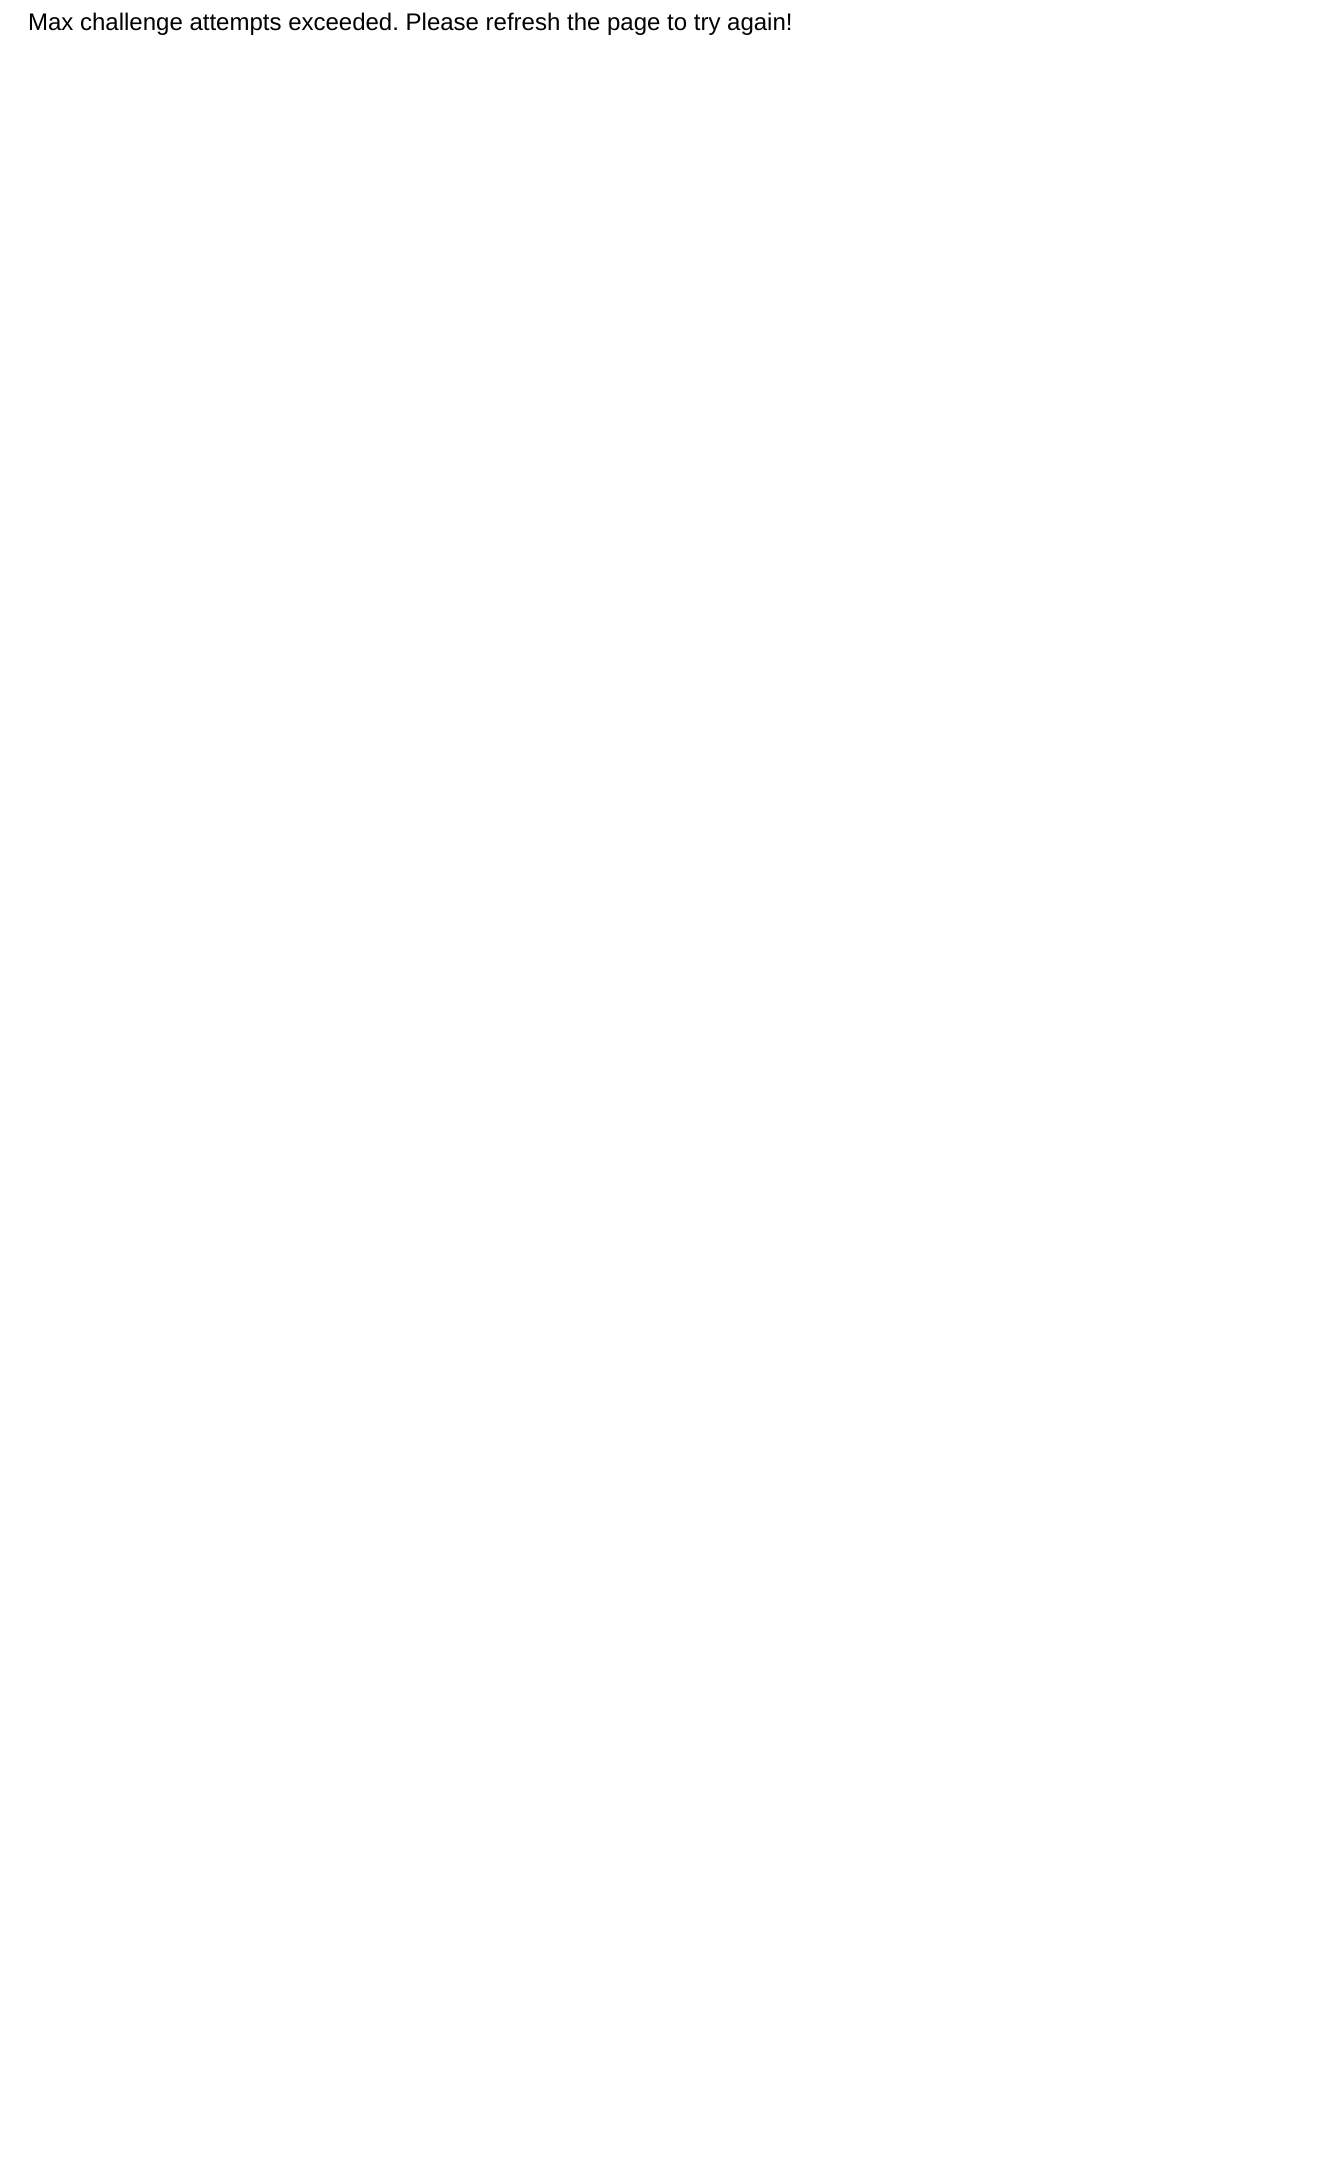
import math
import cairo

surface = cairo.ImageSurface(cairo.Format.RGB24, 1323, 2170)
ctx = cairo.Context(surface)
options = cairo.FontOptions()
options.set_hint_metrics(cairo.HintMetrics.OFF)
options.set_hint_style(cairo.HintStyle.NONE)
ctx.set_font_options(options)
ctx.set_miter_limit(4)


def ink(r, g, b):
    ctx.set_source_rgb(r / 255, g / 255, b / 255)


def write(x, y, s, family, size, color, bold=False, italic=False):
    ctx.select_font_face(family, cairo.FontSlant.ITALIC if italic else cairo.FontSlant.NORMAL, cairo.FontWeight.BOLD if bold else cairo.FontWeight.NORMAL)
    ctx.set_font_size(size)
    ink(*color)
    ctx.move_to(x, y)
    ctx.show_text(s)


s1 = dict(family="Liberation Sans", size=24, color=(0, 0, 0))

ink(255, 255, 255)
ctx.paint()
write(28, 30, "Max challenge attempts exceeded. Please refresh the page to try again!", **s1)
surface.write_to_png("screenshot.png")
